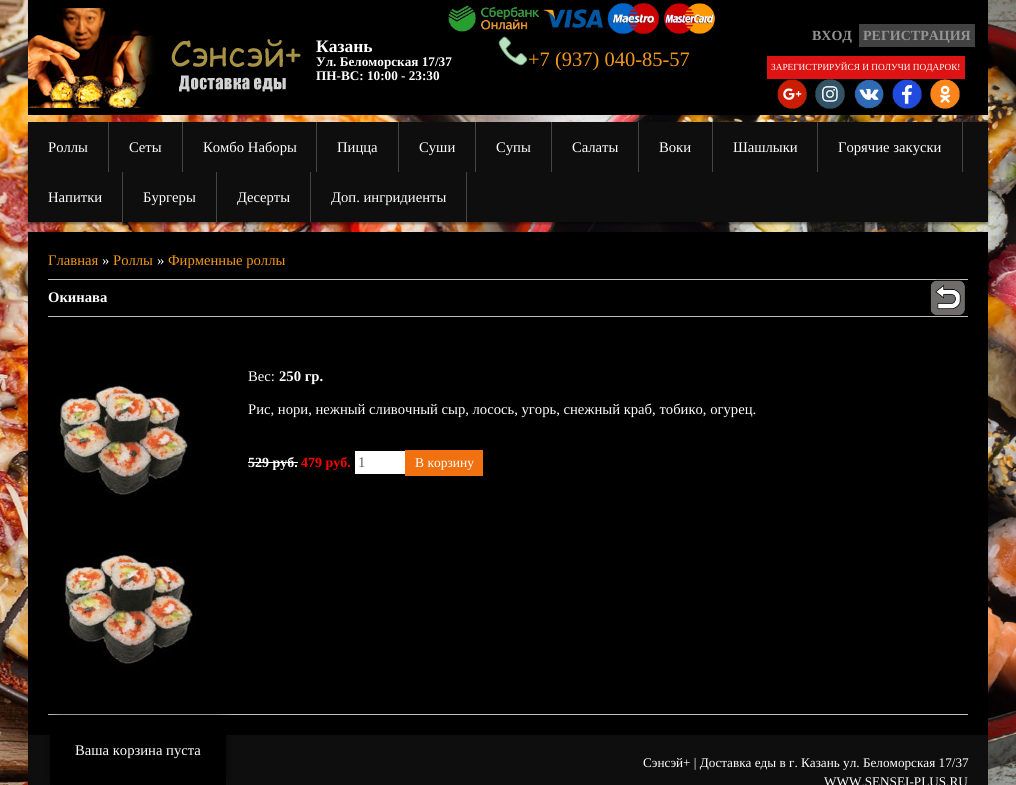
import math
import cairo

surface = cairo.ImageSurface(cairo.Format.RGB24, 1016, 785)
ctx = cairo.Context(surface)
options = cairo.FontOptions()
options.set_hint_metrics(cairo.HintMetrics.OFF)
options.set_hint_style(cairo.HintStyle.NONE)
ctx.set_font_options(options)
ctx.set_miter_limit(4)


def ink(r, g, b):
    ctx.set_source_rgb(r / 255, g / 255, b / 255)


def write(x, y, s, family, size, color, bold=False, italic=False):
    ctx.select_font_face(family, cairo.FontSlant.ITALIC if italic else cairo.FontSlant.NORMAL, cairo.FontWeight.BOLD if bold else cairo.FontWeight.NORMAL)
    ctx.set_font_size(size)
    ink(*color)
    ctx.move_to(x, y)
    ctx.show_text(s)


def block(x, y, w, h, *color):
    ink(*color)
    ctx.rectangle(x, y, w, h)
    ctx.fill()


def round_path(x, y, w, h, r):
    ctx.new_sub_path()
    for i, (u, v) in enumerate([(x + w - r, y + h - r), (x + r, y + h - r), (x + r, y + r), (x + w - r, y + r)]):
        ctx.arc(u, v, r, i * math.pi / 2, (i + 1) * math.pi / 2)
    ctx.close_path()


def blur_box(x, y, w, h, r, blur, alpha):
    ctx.push_group_with_content(cairo.Content.ALPHA)
    ctx.set_operator(cairo.Operator.SOURCE)
    for i in range(15, -16, -2):
        e = blur * i / 6
        if min(w, h) + 2 * e > 0:
            ctx.set_source_rgba(0, 0, 0, alpha * math.erfc((i - 1) / 8.5) / 2)
            round_path(x - e, y - e, w + 2 * e, h + 2 * e, max(0, min(r + e + blur * .6, min(w, h) / 2 + e)))
            ctx.fill()
    ctx.mask(ctx.pop_group())


def paste(path, x, y, w, h):
    ctx.save()
    ctx.set_source_surface(cairo.ImageSurface.create_from_png(path), x, y)
    ctx.rectangle(x, y, w, h)
    ctx.fill()
    ctx.restore()


s1 = dict(family="Liberation Serif", size=17.5, color=(255, 255, 255), bold=True)
s2 = dict(family="Liberation Serif", size=14, color=(148, 148, 148), bold=True)
s3 = dict(family="Liberation Serif", size=9.3, color=(255, 255, 255))
s4 = dict(family="Liberation Serif", size=13.2, color=(255, 255, 255), bold=True)
s5 = dict(family="Liberation Serif", size=20.5, color=(241, 152, 27))
s6 = dict(family="Liberation Serif", size=14.65, color=(255, 255, 255))
s7 = dict(family="Liberation Serif", size=14.65, color=(241, 152, 27))
s8 = dict(family="Liberation Serif", size=14.65, color=(255, 255, 255), bold=True)
s9 = dict(family="Liberation Serif", size=14, color=(255, 255, 255), bold=True)
s10 = dict(family="Liberation Serif", size=14, color=(255, 0, 0), bold=True)
s11 = dict(family="Liberation Serif", size=14.65, color=(94, 94, 94))
s12 = dict(family="Liberation Serif", size=13.5, color=(255, 255, 255))
s13 = dict(family="Liberation Serif", size=13.2, color=(255, 255, 255))

ink(255, 255, 255)
ctx.paint()
paste("pic1.png", 0, 0, 1016, 785)
block(28, 0, 960, 115, 0, 0, 0)
paste("pic2.png", 28, 8, 273, 100)
write(316, 52, "Казань", **s1)
paste("pic3.png", 448, 3, 267, 31)
block(859, 24, 116, 23, 66, 66, 66)
write(863, 40, "РЕГИСТРАЦИЯ", **s2)
block(767, 56, 198, 23, 222, 19, 19)
write(771, 70, "ЗАРЕГИСТРИРУЙСЯ И ПОЛУЧИ ПОДАРОК!", **s3)
write(812, 40, "ВХОД", **s2)
write(316, 66, "Ул. Беломорская 17/37", **s4)
paste("pic4.png", 498, 36, 30, 30)
write(528, 66, "+7 (937) 040-85-57", **s5)
write(316, 80, "ПН-ВС: 10:00 - 23:30", **s4)
paste("pic5.png", 777, 79, 30, 30)
paste("pic6.png", 815, 79, 30, 30)
paste("pic7.png", 854, 79, 30, 30)
paste("pic8.png", 892, 79, 30, 30)
paste("pic9.png", 930, 79, 30, 30)
ink(0, 0, 0)
blur_box(28, 124, 960, 100, 0, 1, 0.4)
block(28, 122, 960, 100, 14, 14, 14)
block(108, 122, 1, 50, 70, 69, 69)
write(48, 152, "Роллы", **s6)
block(182, 122, 1, 50, 70, 69, 69)
write(129, 152, "Сеты", **s6)
block(316, 122, 1, 50, 70, 69, 69)
write(203, 152, "Комбо Наборы", **s6)
block(398, 122, 1, 50, 70, 69, 69)
write(337, 152, "Пицца", **s6)
block(475, 122, 1, 50, 70, 69, 69)
write(419, 152, "Суши", **s6)
block(551, 122, 1, 50, 70, 69, 69)
write(496, 152, "Супы", **s6)
block(638, 122, 1, 50, 70, 69, 69)
write(572, 152, "Салаты", **s6)
block(712, 122, 1, 50, 70, 69, 69)
write(659, 152, "Воки", **s6)
block(817, 122, 1, 50, 70, 69, 69)
write(733, 152, "Шашлыки", **s6)
block(962, 122, 1, 50, 70, 69, 69)
write(838, 152, "Горячие закуски", **s6)
block(122, 172, 1, 50, 70, 69, 69)
write(48, 202, "Напитки", **s6)
block(216, 172, 1, 50, 70, 69, 69)
write(143, 202, "Бургеры", **s6)
block(310, 172, 1, 50, 70, 69, 69)
write(237, 202, "Десерты", **s6)
block(466, 172, 1, 50, 70, 69, 69)
write(331, 202, "Доп. ингридиенты", **s6)
block(28, 232, 960, 503, 0, 0, 0)
write(48, 265, "Главная", **s7)
write(102, 265, "»", **s6)
write(113, 265, "Роллы", **s7)
write(157, 265, "»", **s6)
write(168, 265, "Фирменные роллы", **s7)
block(48, 279, 920, 1, 191, 191, 191)
write(48, 302, "Окинава", **s8)
paste("pic10.png", 930, 279, 35, 37)
block(48, 316, 920, 1, 191, 191, 191)
paste("pic11.png", 56, 382, 136, 119)
write(248, 381, "Вес:", **s6)
write(279, 381, "250 гр.", **s8)
write(248, 414, "Рис, нори, нежный сливочный сыр, лосось, угорь, снежный краб, тобико, огурец.", **s6)
write(248, 467, "529 руб.", **s9)
block(248, 462, 50, 1, 255, 255, 255)
write(301, 467, "479 руб.", **s10)
block(355, 451, 50, 23, 255, 255, 255)
write(358, 467, "1", **s11)
block(405, 450, 78, 26, 241, 113, 16)
write(415, 467, "В корзину", **s12)
paste("pic11.png", 61, 551, 136, 119)
block(48, 714, 920, 1, 191, 191, 191)
block(28, 735, 960, 50, 14, 14, 14)
write(643, 767, "Сэнсэй+ | Доставка еды в г. Казань ул. Беломорская 17/37", **s13)
write(824, 786, "WWW.SENSEI-PLUS.RU", **s13)
ink(0, 0, 0)
blur_box(50, 716, 176, 69, 10, 5, 0.5)
ink(0, 0, 0)
ctx.new_path()
ctx.move_to(60, 716)
ctx.line_to(216, 716)
ctx.curve_to(221.5, 716, 226, 720.5, 226, 726)
ctx.line_to(226, 785)
ctx.line_to(50, 785)
ctx.line_to(50, 726)
ctx.curve_to(50, 720.5, 54.5, 716, 60, 716)
ctx.close_path()
ctx.fill()
write(75, 755, "Ваша корзина пуста", **s6)
surface.write_to_png("screenshot.png")
